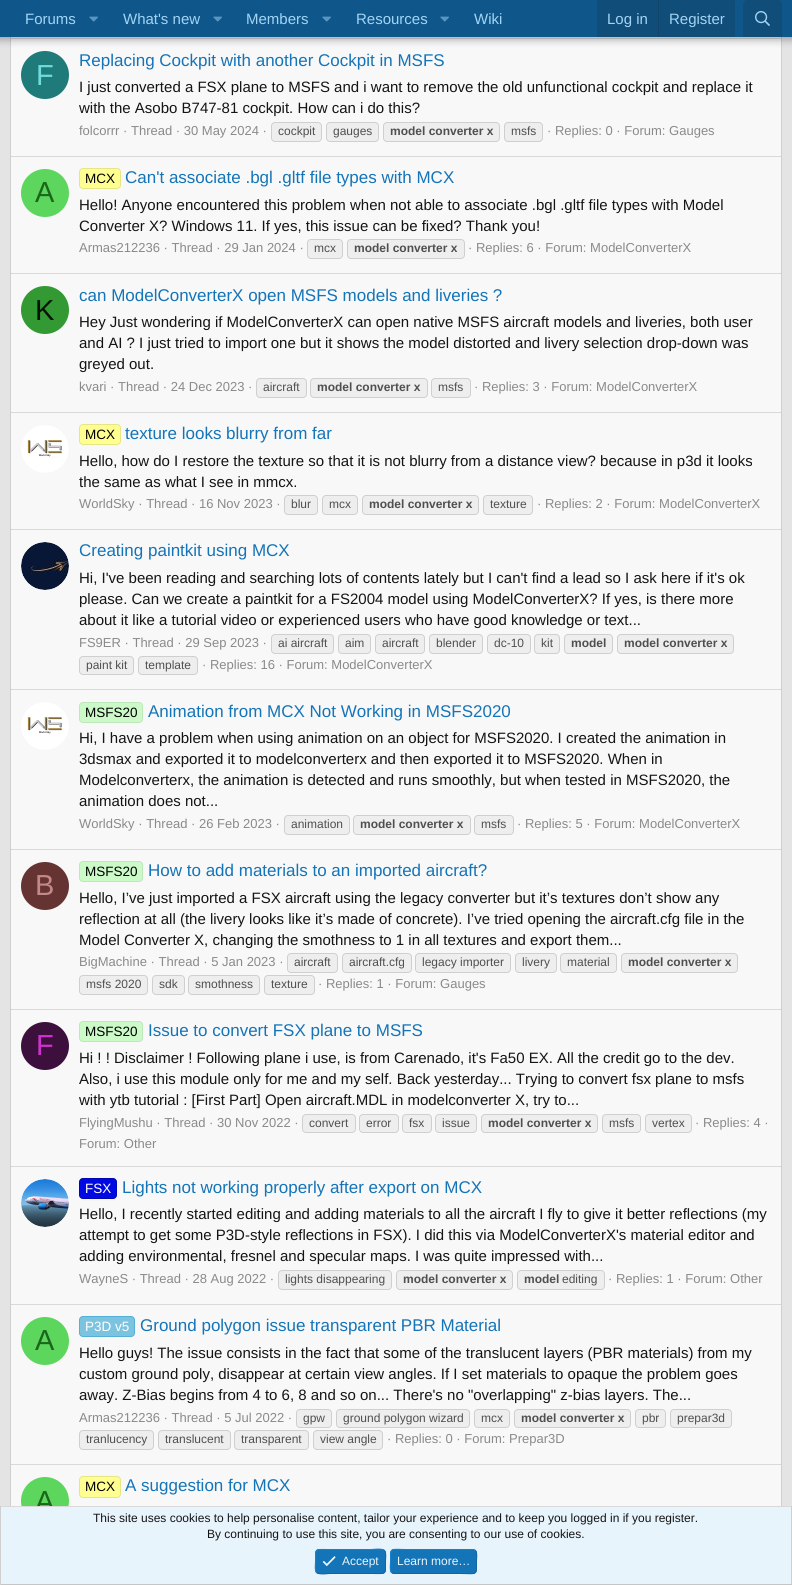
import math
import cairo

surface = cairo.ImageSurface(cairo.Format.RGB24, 792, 1585)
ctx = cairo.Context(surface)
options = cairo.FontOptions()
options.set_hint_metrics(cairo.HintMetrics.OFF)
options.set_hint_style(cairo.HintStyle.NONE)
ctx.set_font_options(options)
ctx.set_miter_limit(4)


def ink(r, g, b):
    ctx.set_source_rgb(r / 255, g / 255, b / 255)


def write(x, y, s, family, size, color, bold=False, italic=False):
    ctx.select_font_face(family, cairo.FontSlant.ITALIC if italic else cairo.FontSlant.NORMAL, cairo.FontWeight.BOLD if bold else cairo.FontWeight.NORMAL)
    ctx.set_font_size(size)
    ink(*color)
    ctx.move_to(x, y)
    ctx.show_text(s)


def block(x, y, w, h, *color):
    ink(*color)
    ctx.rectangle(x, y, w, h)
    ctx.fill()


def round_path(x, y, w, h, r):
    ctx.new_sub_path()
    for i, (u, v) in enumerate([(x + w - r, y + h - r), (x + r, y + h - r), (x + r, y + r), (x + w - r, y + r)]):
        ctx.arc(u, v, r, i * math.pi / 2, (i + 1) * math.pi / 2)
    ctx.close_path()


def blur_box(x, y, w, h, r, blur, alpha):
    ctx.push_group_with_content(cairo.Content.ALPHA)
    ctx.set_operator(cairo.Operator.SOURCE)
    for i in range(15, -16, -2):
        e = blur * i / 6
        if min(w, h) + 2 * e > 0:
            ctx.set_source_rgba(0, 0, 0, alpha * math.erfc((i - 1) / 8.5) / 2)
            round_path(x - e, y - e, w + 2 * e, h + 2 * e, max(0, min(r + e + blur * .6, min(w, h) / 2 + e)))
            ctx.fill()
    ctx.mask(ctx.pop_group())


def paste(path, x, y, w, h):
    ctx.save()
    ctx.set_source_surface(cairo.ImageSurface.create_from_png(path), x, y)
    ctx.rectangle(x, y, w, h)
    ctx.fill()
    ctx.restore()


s1 = dict(family="Liberation Sans", size=15, color=(163, 212, 245))
s2 = dict(family="Liberation Sans", size=29, color=(112, 219, 219))
s3 = dict(family="Liberation Sans", size=17, color=(20, 116, 184))
s4 = dict(family="Liberation Sans", size=15, color=(20, 20, 20))
s5 = dict(family="Liberation Sans", size=13, color=(138, 138, 138))
s6 = dict(family="Liberation Sans", size=12, color=(79, 79, 79))
s7 = dict(family="Liberation Sans", size=12, color=(79, 79, 79), bold=True)
s8 = dict(family="Liberation Sans", size=29, color=(26, 102, 26))
s9 = dict(family="Liberation Sans", size=13.5, color=(0, 0, 0))
s10 = dict(family="Liberation Sans", size=29, color=(6, 19, 6))
s11 = dict(family="Liberation Sans", size=29, color=(195, 136, 136))
s12 = dict(family="Liberation Sans", size=29, color=(204, 51, 204))
s13 = dict(family="Liberation Sans", size=13.5, color=(255, 255, 255))
s14 = dict(family="Liberation Sans", size=12, color=(20, 20, 20))
s15 = dict(family="Liberation Sans", size=12, color=(232, 244, 252))

ink(228, 228, 228)
ctx.paint()
block(11, 37, 770, 1469, 248, 248, 248)
ctx.new_path()
ctx.move_to(780.5, -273.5)
ctx.line_to(781.5, -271)
ctx.line_to(781.5, 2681)
ctx.line_to(780.5, 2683.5)
ink(207, 207, 207)
ctx.set_line_width(1)
ctx.stroke()
ctx.new_path()
ctx.move_to(11.5, 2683.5)
ctx.line_to(10.5, 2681)
ctx.line_to(10.5, -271)
ctx.line_to(11.5, -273.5)
ctx.stroke()
block(11, 38, 770, 1, 217, 217, 217)
ink(31, 122, 122)
ctx.arc(45, 75, 24, 0, 2 * math.pi)
ctx.fill()
ink(0, 0, 0)
blur_box(-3, -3, 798, 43, 0, 4, 0.3)
block(0, 0, 792, 37, 15, 87, 138)
write(25, 24, "Forums", **s1)
paste("pic1.png", 89, 16, 9, 6)
write(123, 24, "What's new", **s1)
paste("pic1.png", 213, 16, 9, 6)
write(246, 24, "Members", **s1)
paste("pic1.png", 322, 16, 9, 6)
write(356, 24, "Resources", **s1)
paste("pic1.png", 440, 16, 9, 6)
write(474, 24, "Wiki", **s1)
block(597, 0, 138, 37, 16, 77, 120)
write(607, 24, "Log in", **s1)
block(658, 0, 1, 37, 17, 68, 105)
write(669, 24, "Register", **s1)
ink(16, 77, 120)
ctx.new_path()
ctx.move_to(747, 0)
ctx.line_to(778, 0)
ctx.curve_to(780, 0, 782, 2, 782, 4)
ctx.line_to(782, 37)
ctx.line_to(743, 37)
ctx.line_to(743, 4)
ctx.curve_to(743, 2, 745, 0, 747, 0)
ctx.close_path()
ctx.fill()
paste("pic2.png", 755, 11, 15, 15)
write(36, 85, "F", **s2)
write(79, 66, "Replacing Cockpit with another Cockpit in MSFS", **s3)
write(79, 92, "I just converted a FSX plane to MSFS and i want to remove the old unfunctional cockpit and replace it", **s4)
write(79, 113, "with the Asobo B747-81 cockpit. How can i do this?", **s4)
write(79, 135, "folcorrr · Thread · 30 May 2024 ·", **s5)
ink(238, 238, 238)
round_path(271.5, 122.5, 50, 19, 3.5)
ctx.fill_preserve()
ink(207, 207, 207)
ctx.stroke()
write(278, 135, "cockpit", **s6)
ink(238, 238, 238)
round_path(326.5, 122.5, 52, 19, 3.5)
ctx.fill_preserve()
ink(207, 207, 207)
ctx.stroke()
write(333, 135, "gauges", **s6)
ink(238, 238, 238)
round_path(383.5, 122.5, 116, 19, 3.5)
ctx.fill_preserve()
ink(207, 207, 207)
ctx.stroke()
write(390, 135, "model converter x", **s7)
ink(238, 238, 238)
round_path(504.5, 122.5, 38, 19, 3.5)
ctx.fill_preserve()
ink(207, 207, 207)
ctx.stroke()
write(511, 135, "msfs", **s6)
write(547, 135, "· Replies: 0 · Forum: Gauges", **s5)
block(11, 156, 770, 1, 217, 217, 217)
ink(92, 214, 92)
ctx.new_path()
ctx.arc(45, 193, 24, 0, 2 * math.pi)
ctx.fill()
write(35, 202, "A", **s8)
ink(255, 255, 145)
round_path(79.5, 168.5, 41, 20, 3.5)
ctx.fill_preserve()
ink(230, 230, 135)
ctx.stroke()
write(85, 183, "MCX", **s9)
write(125, 183, "Can't associate .bgl .gltf file types with MCX", **s3)
write(79, 210, "Hello! Anyone encountered this problem when not able to associate .bgl .gltf file types with Model", **s4)
write(79, 231, "Converter X? Windows 11. If yes, this issue can be fixed? Thank you!", **s4)
write(79, 252, "Armas212236 · Thread · 29 Jan 2024 ·", **s5)
ink(238, 238, 238)
round_path(307.5, 239.5, 35, 19, 3.5)
ctx.fill_preserve()
ink(207, 207, 207)
ctx.stroke()
write(314, 252, "mcx", **s6)
ink(238, 238, 238)
round_path(347.5, 239.5, 117, 19, 3.5)
ctx.fill_preserve()
ink(207, 207, 207)
ctx.stroke()
write(354, 252, "model converter x", **s7)
write(468, 252, "· Replies: 6 · Forum: ModelConverterX", **s5)
block(11, 273, 770, 1, 217, 217, 217)
ink(51, 153, 51)
ctx.new_path()
ctx.arc(45, 310, 24, 0, 2 * math.pi)
ctx.fill()
write(35, 320, "K", **s10)
write(79, 301, "can ModelConverterX open MSFS models and liveries ?", **s3)
write(79, 327, "Hey Just wondering if ModelConverterX can open native MSFS aircraft models and liveries, both user", **s4)
write(79, 348, "and AI ? I just tried to import one but it shows the model distorted and livery selection drop-down was", **s4)
write(79, 369, "greyed out.", **s4)
write(79, 391, "kvari · Thread · 24 Dec 2023 ·", **s5)
ink(238, 238, 238)
round_path(256.5, 378.5, 50, 19, 3.5)
ctx.fill_preserve()
ink(207, 207, 207)
ctx.stroke()
write(263, 391, "aircraft", **s6)
ink(238, 238, 238)
round_path(310.5, 378.5, 117, 19, 3.5)
ctx.fill_preserve()
ink(207, 207, 207)
ctx.stroke()
write(317, 391, "model converter x", **s7)
ink(238, 238, 238)
round_path(431.5, 378.5, 39, 19, 3.5)
ctx.fill_preserve()
ink(207, 207, 207)
ctx.stroke()
write(438, 391, "msfs", **s6)
write(474, 391, "· Replies: 3 · Forum: ModelConverterX", **s5)
block(11, 412, 770, 1, 217, 217, 217)
paste("pic3.png", 21, 425, 48, 48)
ink(255, 255, 145)
round_path(79.5, 424.5, 41, 20, 3.5)
ctx.fill_preserve()
ink(230, 230, 135)
ctx.stroke()
write(85, 439, "MCX", **s9)
write(125, 439, "texture looks blurry from far", **s3)
write(79, 466, "Hello, how do I restore the texture so that it is not blurry from a distance view? because in p3d it looks", **s4)
write(79, 487, "the same as what I see in mmcx.", **s4)
write(79, 508, "WorldSky · Thread · 16 Nov 2023 ·", **s5)
ink(238, 238, 238)
round_path(284.5, 495.5, 33, 19, 3.5)
ctx.fill_preserve()
ink(207, 207, 207)
ctx.stroke()
write(291, 508, "blur", **s6)
ink(238, 238, 238)
round_path(322.5, 495.5, 35, 19, 3.5)
ctx.fill_preserve()
ink(207, 207, 207)
ctx.stroke()
write(329, 508, "mcx", **s6)
ink(238, 238, 238)
round_path(362.5, 495.5, 116, 19, 3.5)
ctx.fill_preserve()
ink(207, 207, 207)
ctx.stroke()
write(369, 508, "model converter x", **s7)
ink(238, 238, 238)
round_path(483.5, 495.5, 49, 19, 3.5)
ctx.fill_preserve()
ink(207, 207, 207)
ctx.stroke()
write(490, 508, "texture", **s6)
write(537, 508, "· Replies: 2 · Forum: ModelConverterX", **s5)
block(11, 529, 770, 1, 217, 217, 217)
paste("pic4.png", 21, 542, 48, 48)
write(79, 556, "Creating paintkit using MCX", **s3)
write(79, 583, "Hi, I've been reading and searching lots of contents lately but I can't find a lead so I ask here if it's ok", **s4)
write(79, 604, "please. Can we create a paintkit for a FS2004 model using ModelConverterX? If yes, is there more", **s4)
write(79, 625, "about it like a tutorial video or experienced users who have good knowledge or text...", **s4)
write(79, 647, "FS9ER · Thread · 29 Sep 2023 ·", **s5)
ink(238, 238, 238)
round_path(271.5, 634.5, 62, 19, 3.5)
ctx.fill_preserve()
ink(207, 207, 207)
ctx.stroke()
write(278, 647, "ai aircraft", **s6)
ink(238, 238, 238)
round_path(338.5, 634.5, 32, 19, 3.5)
ctx.fill_preserve()
ink(207, 207, 207)
ctx.stroke()
write(345, 647, "aim", **s6)
ink(238, 238, 238)
round_path(375.5, 634.5, 49, 19, 3.5)
ctx.fill_preserve()
ink(207, 207, 207)
ctx.stroke()
write(382, 647, "aircraft", **s6)
ink(238, 238, 238)
round_path(429.5, 634.5, 53, 19, 3.5)
ctx.fill_preserve()
ink(207, 207, 207)
ctx.stroke()
write(436, 647, "blender", **s6)
ink(238, 238, 238)
round_path(487.5, 634.5, 43, 19, 3.5)
ctx.fill_preserve()
ink(207, 207, 207)
ctx.stroke()
write(494, 647, "dc-10", **s6)
ink(238, 238, 238)
round_path(534.5, 634.5, 25, 19, 3.5)
ctx.fill_preserve()
ink(207, 207, 207)
ctx.stroke()
write(541, 647, "kit", **s6)
ink(238, 238, 238)
round_path(564.5, 634.5, 48, 19, 3.5)
ctx.fill_preserve()
ink(207, 207, 207)
ctx.stroke()
write(571, 647, "model", **s7)
ink(238, 238, 238)
round_path(617.5, 634.5, 116, 19, 3.5)
ctx.fill_preserve()
ink(207, 207, 207)
ctx.stroke()
write(624, 647, "model converter x", **s7)
ink(238, 238, 238)
round_path(79.5, 656.5, 54, 18, 3.5)
ctx.fill_preserve()
ink(207, 207, 207)
ctx.stroke()
write(86, 669, "paint kit", **s6)
ink(238, 238, 238)
round_path(138.5, 656.5, 59, 18, 3.5)
ctx.fill_preserve()
ink(207, 207, 207)
ctx.stroke()
write(145, 669, "template", **s6)
write(202, 669, "· Replies: 16 · Forum: ModelConverterX", **s5)
block(11, 689, 770, 1, 217, 217, 217)
paste("pic3.png", 21, 702, 48, 48)
ink(204, 249, 200)
round_path(79.5, 702.5, 63, 20, 3.5)
ctx.fill_preserve()
ink(190, 232, 186)
ctx.stroke()
write(85, 717, "MSFS20", **s9)
write(148, 717, "Animation from MCX Not Working in MSFS2020", **s3)
write(79, 743, "Hi, I have a problem when using animation on an object for MSFS2020. I created the animation in", **s4)
write(79, 764, "3dsmax and exported it to modelconverterx and then exported it to MSFS2020. When in", **s4)
write(79, 785, "Modelconverterx, the animation is detected and runs smoothly, but when tested in MSFS2020, the", **s4)
write(79, 806, "animation does not...", **s4)
write(79, 828, "WorldSky · Thread · 26 Feb 2023 ·", **s5)
ink(238, 238, 238)
round_path(284.5, 815.5, 65, 19, 3.5)
ctx.fill_preserve()
ink(207, 207, 207)
ctx.stroke()
write(291, 828, "animation", **s6)
ink(238, 238, 238)
round_path(353.5, 815.5, 117, 19, 3.5)
ctx.fill_preserve()
ink(207, 207, 207)
ctx.stroke()
write(360, 828, "model converter x", **s7)
ink(238, 238, 238)
round_path(474.5, 815.5, 39, 19, 3.5)
ctx.fill_preserve()
ink(207, 207, 207)
ctx.stroke()
write(481, 828, "msfs", **s6)
write(517, 828, "· Replies: 5 · Forum: ModelConverterX", **s5)
block(11, 849, 770, 1, 217, 217, 217)
ink(102, 51, 51)
ctx.new_path()
ctx.arc(45, 886, 24, 0, 2 * math.pi)
ctx.fill()
write(35, 895, "B", **s11)
ink(204, 249, 200)
round_path(79.5, 861.5, 63, 20, 3.5)
ctx.fill_preserve()
ink(190, 232, 186)
ctx.stroke()
write(85, 876, "MSFS20", **s9)
write(148, 876, "How to add materials to an imported aircraft?", **s3)
write(79, 903, "Hello, I’ve just imported a FSX aircraft using the legacy converter but it’s textures don’t show any", **s4)
write(79, 924, "reflection at all (the livery looks like it’s made of concrete). I’ve tried opening the aircraft.cfg file in the", **s4)
write(79, 945, "Model Converter X, changing the smothness to 1 in all textures and export them...", **s4)
write(79, 966, "BigMachine · Thread · 5 Jan 2023 ·", **s5)
ink(238, 238, 238)
round_path(287.5, 953.5, 50, 19, 3.5)
ctx.fill_preserve()
ink(207, 207, 207)
ctx.stroke()
write(294, 966, "aircraft", **s6)
ink(238, 238, 238)
round_path(342.5, 953.5, 69, 19, 3.5)
ctx.fill_preserve()
ink(207, 207, 207)
ctx.stroke()
write(349, 966, "aircraft.cfg", **s6)
ink(238, 238, 238)
round_path(415.5, 953.5, 95, 19, 3.5)
ctx.fill_preserve()
ink(207, 207, 207)
ctx.stroke()
write(422, 966, "legacy importer", **s6)
ink(238, 238, 238)
round_path(515.5, 953.5, 41, 19, 3.5)
ctx.fill_preserve()
ink(207, 207, 207)
ctx.stroke()
write(522, 966, "livery", **s6)
ink(238, 238, 238)
round_path(560.5, 953.5, 56, 19, 3.5)
ctx.fill_preserve()
ink(207, 207, 207)
ctx.stroke()
write(567, 966, "material", **s6)
ink(238, 238, 238)
round_path(621.5, 953.5, 116, 19, 3.5)
ctx.fill_preserve()
ink(207, 207, 207)
ctx.stroke()
write(628, 966, "model converter x", **s7)
ink(238, 238, 238)
round_path(79.5, 975.5, 68, 19, 3.5)
ctx.fill_preserve()
ink(207, 207, 207)
ctx.stroke()
write(86, 988, "msfs 2020", **s6)
ink(238, 238, 238)
round_path(152.5, 975.5, 32, 19, 3.5)
ctx.fill_preserve()
ink(207, 207, 207)
ctx.stroke()
write(159, 988, "sdk", **s6)
ink(238, 238, 238)
round_path(188.5, 975.5, 71, 19, 3.5)
ctx.fill_preserve()
ink(207, 207, 207)
ctx.stroke()
write(195, 988, "smothness", **s6)
ink(238, 238, 238)
round_path(264.5, 975.5, 50, 19, 3.5)
ctx.fill_preserve()
ink(207, 207, 207)
ctx.stroke()
write(271, 988, "texture", **s6)
write(318, 988, "· Replies: 1 · Forum: Gauges", **s5)
block(11, 1009, 770, 1, 217, 217, 217)
ink(61, 15, 61)
ctx.new_path()
ctx.arc(45, 1046, 24, 0, 2 * math.pi)
ctx.fill()
write(36, 1055, "F", **s12)
ink(204, 249, 200)
round_path(79.5, 1021.5, 63, 20, 3.5)
ctx.fill_preserve()
ink(190, 232, 186)
ctx.stroke()
write(85, 1036, "MSFS20", **s9)
write(148, 1036, "Issue to convert FSX plane to MSFS", **s3)
write(79, 1063, "Hi ! ! Disclaimer ! Following plane i use, is from Carenado, it's Fa50 EX. All the credit go to the dev.", **s4)
write(79, 1084, "Also, i use this module only for me and my self. Back yesterday... Trying to convert fsx plane to msfs", **s4)
write(79, 1105, "with ytb tutorial : [First Part] Open aircraft.MDL in modelconverter X, try to...", **s4)
write(79, 1127, "FlyingMushu · Thread · 30 Nov 2022 ·", **s5)
ink(238, 238, 238)
round_path(302.5, 1114.5, 53, 18, 3.5)
ctx.fill_preserve()
ink(207, 207, 207)
ctx.stroke()
write(309, 1127, "convert", **s6)
ink(238, 238, 238)
round_path(359.5, 1114.5, 39, 18, 3.5)
ctx.fill_preserve()
ink(207, 207, 207)
ctx.stroke()
write(366, 1127, "error", **s6)
ink(238, 238, 238)
round_path(402.5, 1114.5, 29, 18, 3.5)
ctx.fill_preserve()
ink(207, 207, 207)
ctx.stroke()
write(409, 1127, "fsx", **s6)
ink(238, 238, 238)
round_path(435.5, 1114.5, 41, 18, 3.5)
ctx.fill_preserve()
ink(207, 207, 207)
ctx.stroke()
write(442, 1127, "issue", **s6)
ink(238, 238, 238)
round_path(481.5, 1114.5, 116, 18, 3.5)
ctx.fill_preserve()
ink(207, 207, 207)
ctx.stroke()
write(488, 1127, "model converter x", **s7)
ink(238, 238, 238)
round_path(602.5, 1114.5, 38, 18, 3.5)
ctx.fill_preserve()
ink(207, 207, 207)
ctx.stroke()
write(609, 1127, "msfs", **s6)
ink(238, 238, 238)
round_path(645.5, 1114.5, 46, 18, 3.5)
ctx.fill_preserve()
ink(207, 207, 207)
ctx.stroke()
write(652, 1127, "vertex", **s6)
write(695, 1127, "· Replies: 4 ·", **s5)
write(79, 1148, "Forum: Other", **s5)
block(11, 1166, 770, 1, 217, 217, 217)
paste("pic5.png", 21, 1179, 48, 48)
ink(0, 8, 227)
round_path(79.5, 1178.5, 37, 20, 3.5)
ctx.fill_preserve()
ink(0, 6, 176)
ctx.stroke()
write(85, 1193, "FSX", **s13)
write(122, 1193, "Lights not working properly after export on MCX", **s3)
write(79, 1219, "Hello, I recently started editing and adding materials to all the aircraft I fly to give it better reflections (my", **s4)
write(79, 1240, "attempt to get some P3D-style reflections in FSX). I did this via ModelConverterX's material editor and", **s4)
write(79, 1261, "adding environmental, fresnel and specular maps. I was quite impressed with...", **s4)
write(79, 1283, "WayneS · Thread · 28 Aug 2022 ·", **s5)
ink(238, 238, 238)
round_path(278.5, 1270.5, 113, 19, 3.5)
ctx.fill_preserve()
ink(207, 207, 207)
ctx.stroke()
write(285, 1283, "lights disappearing", **s6)
ink(238, 238, 238)
round_path(396.5, 1270.5, 116, 19, 3.5)
ctx.fill_preserve()
ink(207, 207, 207)
ctx.stroke()
write(403, 1283, "model converter x", **s7)
ink(238, 238, 238)
round_path(517.5, 1270.5, 87, 19, 3.5)
ctx.fill_preserve()
ink(207, 207, 207)
ctx.stroke()
write(524, 1283, "model", **s7)
write(562, 1283, "editing", **s6)
write(608, 1283, "· Replies: 1 · Forum: Other", **s5)
block(11, 1304, 770, 1, 217, 217, 217)
ink(92, 214, 92)
ctx.new_path()
ctx.arc(45, 1341, 24, 0, 2 * math.pi)
ctx.fill()
write(35, 1350, "A", **s8)
ink(124, 195, 224)
round_path(79.5, 1316.5, 55, 20, 3.5)
ctx.fill_preserve()
ink(83, 176, 214)
ctx.stroke()
write(85, 1331, "P3D v5", **s13)
write(140, 1331, "Ground polygon issue transparent PBR Material", **s3)
write(79, 1358, "Hello guys! The issue consists in the fact that some of the translucent layers (PBR materials) from my", **s4)
write(79, 1379, "custom ground poly, disappear at certain view angles. If I set materials to opaque the problem goes", **s4)
write(79, 1400, "away. Z-Bias begins from 4 to 6, 8 and so on... There's no \"overlapping\" z-bias layers. The...", **s4)
write(79, 1422, "Armas212236 · Thread · 5 Jul 2022 ·", **s5)
ink(238, 238, 238)
round_path(296.5, 1409.5, 35, 18, 3.5)
ctx.fill_preserve()
ink(207, 207, 207)
ctx.stroke()
write(303, 1422, "gpw", **s6)
ink(238, 238, 238)
round_path(336.5, 1409.5, 133, 18, 3.5)
ctx.fill_preserve()
ink(207, 207, 207)
ctx.stroke()
write(343, 1422, "ground polygon wizard", **s6)
ink(238, 238, 238)
round_path(474.5, 1409.5, 35, 18, 3.5)
ctx.fill_preserve()
ink(207, 207, 207)
ctx.stroke()
write(481, 1422, "mcx", **s6)
ink(238, 238, 238)
round_path(514.5, 1409.5, 116, 18, 3.5)
ctx.fill_preserve()
ink(207, 207, 207)
ctx.stroke()
write(521, 1422, "model converter x", **s7)
ink(238, 238, 238)
round_path(635.5, 1409.5, 30, 18, 3.5)
ctx.fill_preserve()
ink(207, 207, 207)
ctx.stroke()
write(642, 1422, "pbr", **s6)
ink(238, 238, 238)
round_path(670.5, 1409.5, 61, 18, 3.5)
ctx.fill_preserve()
ink(207, 207, 207)
ctx.stroke()
write(677, 1422, "prepar3d", **s6)
ink(238, 238, 238)
round_path(79.5, 1430.5, 74, 19, 3.5)
ctx.fill_preserve()
ink(207, 207, 207)
ctx.stroke()
write(86, 1443, "tranlucency", **s6)
ink(238, 238, 238)
round_path(158.5, 1430.5, 72, 19, 3.5)
ctx.fill_preserve()
ink(207, 207, 207)
ctx.stroke()
write(165, 1443, "translucent", **s6)
ink(238, 238, 238)
round_path(234.5, 1430.5, 74, 19, 3.5)
ctx.fill_preserve()
ink(207, 207, 207)
ctx.stroke()
write(241, 1443, "transparent", **s6)
ink(238, 238, 238)
round_path(313.5, 1430.5, 69, 19, 3.5)
ctx.fill_preserve()
ink(207, 207, 207)
ctx.stroke()
write(320, 1443, "view angle", **s6)
write(387, 1443, "· Replies: 0 · Forum: Prepar3D", **s5)
block(11, 1464, 770, 1, 217, 217, 217)
ink(255, 255, 145)
round_path(79.5, 1476.5, 41, 21, 3.5)
ctx.fill_preserve()
ink(230, 230, 135)
ctx.stroke()
write(85, 1491, "MCX", **s9)
write(125, 1491, "A suggestion for MCX", **s3)
ink(92, 214, 92)
ctx.new_path()
ctx.arc(45, 1501, 24, 0, 2 * math.pi)
ctx.fill()
write(35, 1511, "A", **s8)
block(1, 1507, 790, 77, 232, 244, 252)
block(0, 1506, 792, 1, 217, 217, 217)
block(791, 1506, 1, 79, 207, 207, 207)
block(0, 1584, 792, 1, 197, 197, 197)
block(0, 1506, 1, 79, 207, 207, 207)
write(93, 1522, "This site uses cookies to help personalise content, tailor your experience and to keep you logged in if you register.", **s14)
write(207, 1538, "By continuing to use this site, you are consenting to our use of cookies.", **s14)
ink(20, 116, 184)
round_path(315, 1549, 71, 25, 4)
ctx.fill()
ctx.new_path()
ctx.move_to(384.5, 1550.5)
ctx.curve_to(386.5, 1553, 385.5, 1559, 385.5, 1561.5)
ctx.curve_to(385.5, 1575.5, 386.5, 1573.5, 371.5, 1573.5)
ctx.line_to(329.5, 1573.5)
ctx.curve_to(328.5, 1573.5, 319, 1575, 316.5, 1572.5)
ink(18, 101, 161)
ctx.stroke()
ctx.new_path()
ctx.move_to(316.5, 1572.5)
ctx.curve_to(314.5, 1570, 315.5, 1564, 315.5, 1561.5)
ctx.curve_to(315.5, 1547.5, 314.5, 1549.5, 329.5, 1549.5)
ctx.line_to(371.5, 1549.5)
ctx.curve_to(372.5, 1549.5, 382, 1548, 384.5, 1550.5)
ink(23, 130, 207)
ctx.stroke()
paste("pic6.png", 322, 1556, 14, 11)
write(342, 1565, "Accept", **s15)
ink(20, 116, 184)
round_path(390, 1549, 87, 25, 4)
ctx.fill()
ctx.new_path()
ctx.move_to(475.5, 1550.5)
ctx.curve_to(477.5, 1553, 476.5, 1559, 476.5, 1561.5)
ctx.curve_to(476.5, 1576.5, 477, 1573.5, 460, 1573.5)
ctx.line_to(394, 1573.5)
ctx.line_to(391.5, 1572.5)
ink(18, 101, 161)
ctx.stroke()
ctx.new_path()
ctx.move_to(391.5, 1572.5)
ctx.curve_to(389.5, 1570, 390.5, 1564, 390.5, 1561.5)
ctx.curve_to(390.5, 1546.5, 390, 1549.5, 407, 1549.5)
ctx.line_to(473, 1549.5)
ctx.line_to(475.5, 1550.5)
ink(23, 130, 207)
ctx.stroke()
write(397, 1565, "Learn more…", **s15)
surface.write_to_png("screenshot.png")
